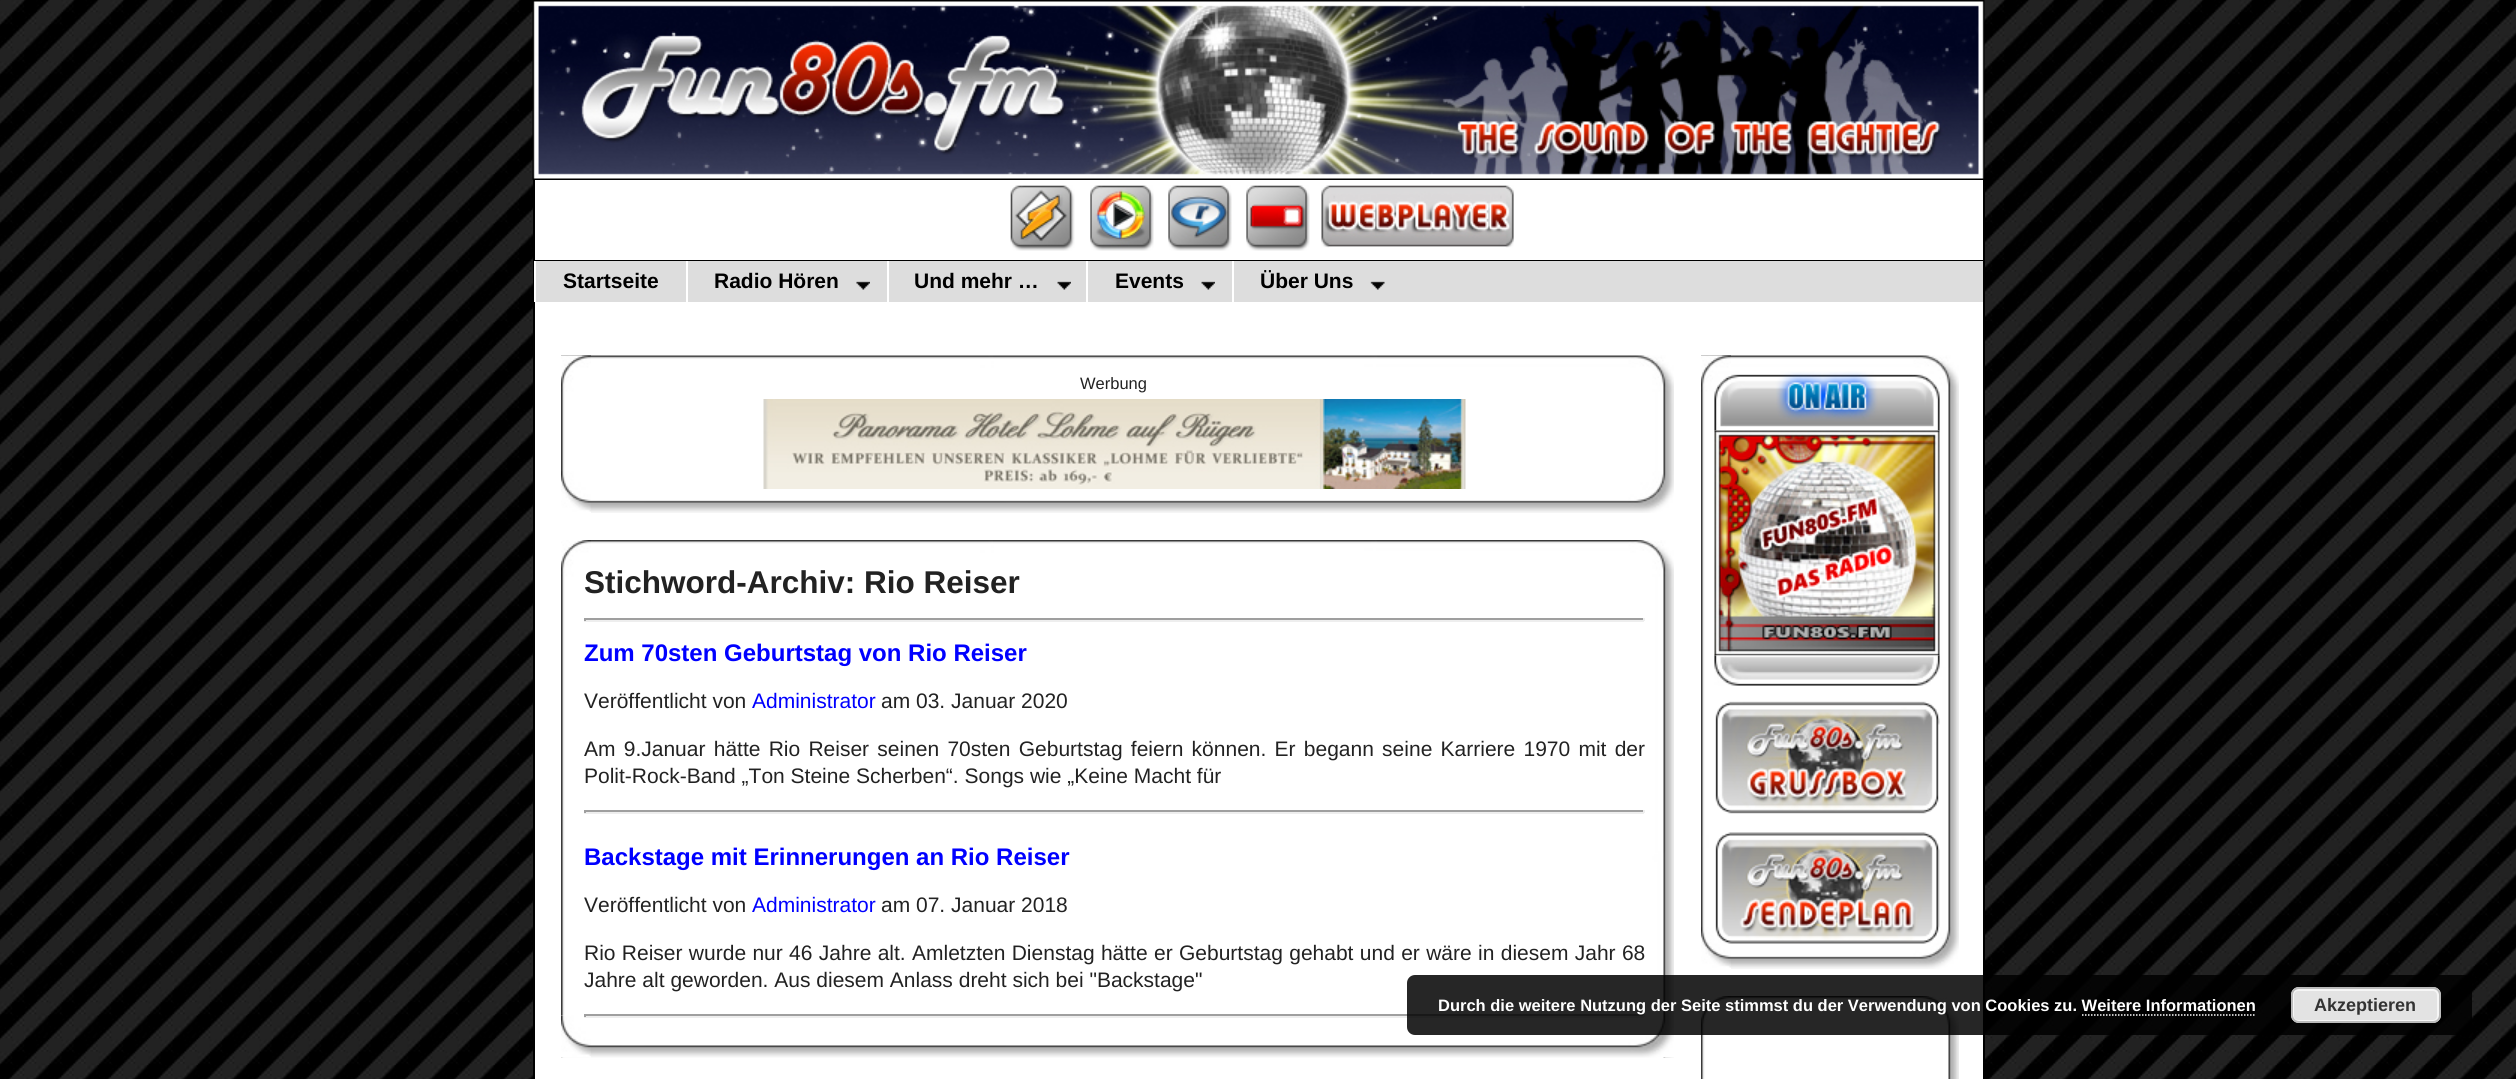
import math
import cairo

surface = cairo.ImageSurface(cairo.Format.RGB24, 2516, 1079)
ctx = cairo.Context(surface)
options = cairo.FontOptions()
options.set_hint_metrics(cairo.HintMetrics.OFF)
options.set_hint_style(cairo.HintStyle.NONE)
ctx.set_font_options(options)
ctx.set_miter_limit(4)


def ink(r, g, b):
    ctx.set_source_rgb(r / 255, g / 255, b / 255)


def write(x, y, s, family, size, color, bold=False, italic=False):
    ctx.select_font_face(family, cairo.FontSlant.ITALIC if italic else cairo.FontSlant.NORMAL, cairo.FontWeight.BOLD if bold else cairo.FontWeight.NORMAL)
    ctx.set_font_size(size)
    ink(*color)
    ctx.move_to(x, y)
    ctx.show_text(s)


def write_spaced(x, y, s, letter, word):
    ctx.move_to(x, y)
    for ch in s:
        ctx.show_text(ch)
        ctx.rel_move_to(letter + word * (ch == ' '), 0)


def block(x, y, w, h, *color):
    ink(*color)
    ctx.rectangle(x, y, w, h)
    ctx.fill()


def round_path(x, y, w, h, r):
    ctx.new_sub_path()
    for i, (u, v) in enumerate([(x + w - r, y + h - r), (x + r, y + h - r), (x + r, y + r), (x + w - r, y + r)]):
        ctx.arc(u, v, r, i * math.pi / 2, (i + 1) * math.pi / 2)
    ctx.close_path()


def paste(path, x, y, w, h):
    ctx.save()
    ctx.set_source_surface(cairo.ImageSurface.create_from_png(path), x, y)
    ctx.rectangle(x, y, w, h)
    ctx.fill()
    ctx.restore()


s1 = dict(family="Liberation Sans", size=21, color=(0, 0, 0), bold=True)
s2 = dict(family="Liberation Sans", size=16.5, color=(34, 34, 34))
s3 = dict(family="Liberation Sans", size=31.5, color=(34, 34, 34), bold=True)
s4 = dict(family="Liberation Sans", size=24, color=(0, 0, 255), bold=True)
s5 = dict(family="Liberation Sans", size=21, color=(34, 34, 34))
s6 = dict(family="Liberation Sans", size=21, color=(0, 0, 255))
s7 = dict(family="Liberation Sans", size=16.5, color=(255, 255, 255), bold=True)
s8 = dict(family="Liberation Sans", size=18, color=(51, 51, 51), bold=True)

ink(255, 255, 255)
ctx.paint()
paste("pic1.png", 0, 0, 2516, 1079)
paste("pic2.png", 532, 0, 1453, 180)
block(535, 180, 1448, 899, 255, 255, 255)
block(1983, 191, 2, 871, 0, 0, 0)
block(533, 180, 2, 899, 0, 0, 0)
paste("pic3.png", 1010, 185, 65, 66)
paste("pic4.png", 1090, 185, 64, 66)
paste("pic5.png", 1168, 185, 64, 66)
paste("pic6.png", 1246, 185, 64, 66)
paste("pic7.png", 1321, 185, 193, 63)
block(534, 260, 1449, 1, 0, 0, 0)
block(536, 261, 1447, 41, 221, 221, 221)
block(534, 261, 1, 41, 255, 255, 255)
write(563, 288, "Startseite", **s1)
block(686, 261, 2, 41, 255, 255, 255)
write(714, 288, "Radio Hören", **s1)
paste("pic8.png", 856, 281, 14, 9)
block(887, 261, 2, 41, 255, 255, 255)
write(914, 288, "Und mehr …", **s1)
paste("pic9.png", 1057, 281, 14, 9)
block(1086, 261, 2, 41, 255, 255, 255)
write(1115, 288, "Events", **s1)
paste("pic9.png", 1201, 281, 14, 9)
block(1232, 261, 2, 41, 255, 255, 255)
write(1260, 288, "Über Uns", **s1)
paste("pic10.png", 1370, 281, 15, 9)
paste("pic11.png", 561, 355, 1113, 116)
paste("pic12.png", 561, 355, 30, 116)
paste("pic13.png", 591, 471, 1083, 42)
paste("pic14.png", 561, 471, 30, 42)
write(1080, 389, "Werbung", **s2)
paste("pic15.png", 763, 399, 703, 90)
paste("pic16.png", 561, 540, 1113, 518)
paste("pic17.png", 561, 540, 30, 518)
paste("pic18.png", 561, 1015, 1113, 43)
paste("pic19.png", 561, 1015, 30, 43)
write(584, 593, "Stichword-Archiv: Rio Reiser", **s3)
block(584, 618, 1060, 2, 159, 159, 159)
block(1643, 618, 2, 3, 238, 238, 238)
block(584, 620, 1060, 2, 238, 238, 238)
block(584, 618, 2, 3, 159, 159, 159)
write(584, 661, "Zum 70sten Geburtstag von Rio Reiser", **s4)
write(584, 708, "Veröffentlicht von", **s5)
write(752, 708, "Administrator", **s6)
write(881, 708, "am 03. Januar 2020", **s5)
write_spaced(584, 756, "Am 9.Januar hätte Rio Reiser seinen 70sten Geburtstag feiern können. Er begann seine Karriere 1970 mit der", 0, 2.4)
write(584, 783, "Polit-Rock-Band „Ton Steine Scherben“. Songs wie „Keine Macht für", **s5)
block(584, 810, 1060, 2, 159, 159, 159)
block(1643, 810, 2, 3, 238, 238, 238)
block(584, 812, 1060, 2, 238, 238, 238)
block(584, 810, 2, 3, 159, 159, 159)
write(584, 865, "Backstage mit Erinnerungen an Rio Reiser", **s4)
write(584, 912, "Veröffentlicht von", **s5)
write(752, 912, "Administrator", **s6)
write(881, 912, "am 07. Januar 2018", **s5)
write_spaced(584, 960, "Rio Reiser wurde nur 46 Jahre alt. Amletzten Dienstag hätte er Geburtstag gehabt und er wäre in diesem Jahr 68", 0, 0.5)
write(584, 987, "Jahre alt geworden. Aus diesem Anlass dreht sich bei \"Backstage\"", **s5)
block(584, 1014, 1060, 2, 159, 159, 159)
block(1643, 1014, 2, 3, 238, 238, 238)
block(584, 1016, 1060, 2, 238, 238, 238)
block(584, 1014, 2, 3, 159, 159, 159)
paste("pic20.png", 1701, 355, 258, 572)
paste("pic21.png", 1701, 355, 30, 572)
paste("pic22.png", 1731, 927, 228, 42)
paste("pic23.png", 1701, 927, 30, 42)
paste("pic24.png", 1714, 371, 226, 60)
paste("pic25.png", 1714, 430, 226, 226)
paste("pic26.png", 1714, 655, 226, 31)
paste("pic27.png", 1715, 701, 225, 113)
paste("pic28.png", 1715, 832, 225, 112)
paste("pic29.png", 1731, 996, 228, 83)
paste("pic30.png", 1701, 996, 30, 83)
ctx.set_source_rgba(0, 0, 0, 0.85)
round_path(1407, 975, 1065, 60, 8)
ctx.fill()
write(1438, 1011, "Durch die weitere Nutzung der Seite stimmst du der Verwendung von Cookies zu. Weitere Informationen", **s7)
ink(227, 227, 227)
round_path(2291, 987, 150, 36, 8)
ctx.fill()
round_path(2293, 990, 145, 31, 5)
ink(246, 246, 246)
ctx.stroke()
round_path(2292, 988, 148, 34, 7)
ink(187, 187, 187)
ctx.stroke()
write(2314, 1011, "Akzeptieren", **s8)
ctx.new_path()
ctx.move_to(2082, 1015)
ctx.line_to(2256, 1015)
ink(255, 255, 255)
ctx.set_line_width(1.5)
ctx.set_dash([1.5, 1.5])
ctx.stroke()
surface.write_to_png("screenshot.png")
